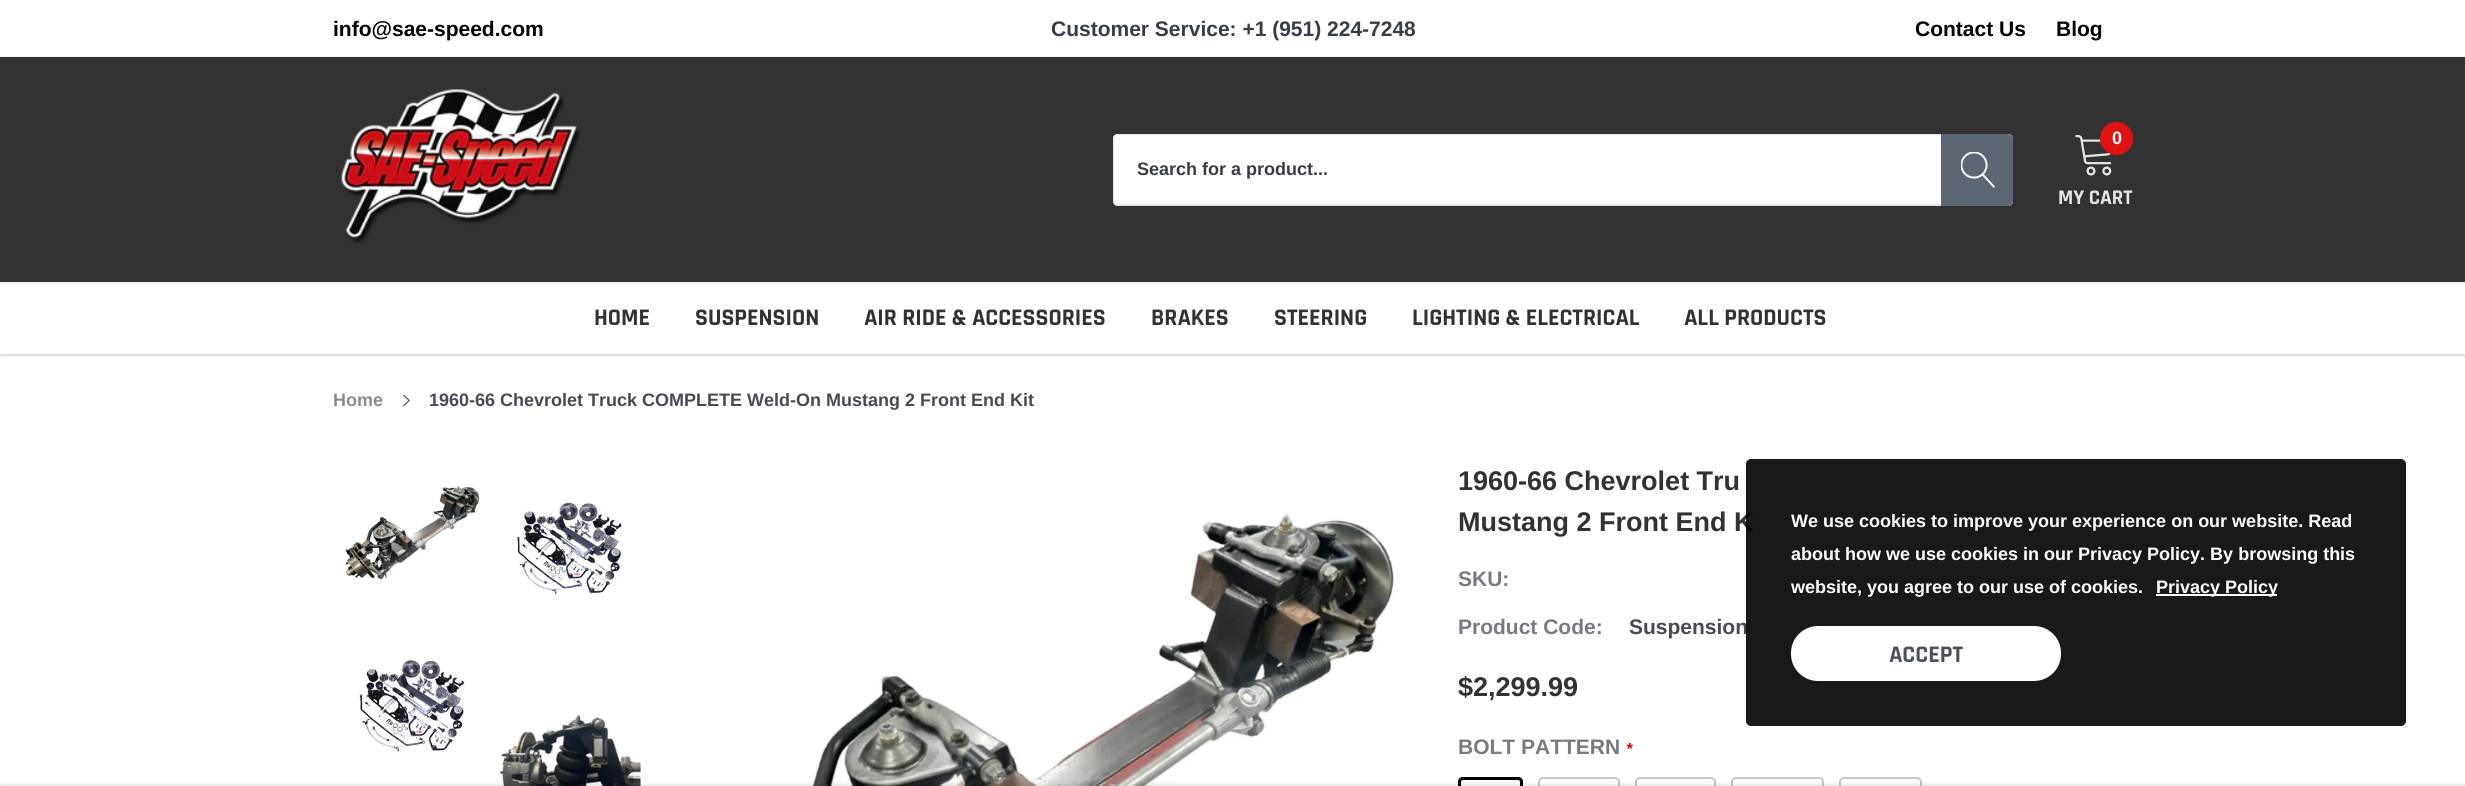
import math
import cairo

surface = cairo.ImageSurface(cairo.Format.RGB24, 2465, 786)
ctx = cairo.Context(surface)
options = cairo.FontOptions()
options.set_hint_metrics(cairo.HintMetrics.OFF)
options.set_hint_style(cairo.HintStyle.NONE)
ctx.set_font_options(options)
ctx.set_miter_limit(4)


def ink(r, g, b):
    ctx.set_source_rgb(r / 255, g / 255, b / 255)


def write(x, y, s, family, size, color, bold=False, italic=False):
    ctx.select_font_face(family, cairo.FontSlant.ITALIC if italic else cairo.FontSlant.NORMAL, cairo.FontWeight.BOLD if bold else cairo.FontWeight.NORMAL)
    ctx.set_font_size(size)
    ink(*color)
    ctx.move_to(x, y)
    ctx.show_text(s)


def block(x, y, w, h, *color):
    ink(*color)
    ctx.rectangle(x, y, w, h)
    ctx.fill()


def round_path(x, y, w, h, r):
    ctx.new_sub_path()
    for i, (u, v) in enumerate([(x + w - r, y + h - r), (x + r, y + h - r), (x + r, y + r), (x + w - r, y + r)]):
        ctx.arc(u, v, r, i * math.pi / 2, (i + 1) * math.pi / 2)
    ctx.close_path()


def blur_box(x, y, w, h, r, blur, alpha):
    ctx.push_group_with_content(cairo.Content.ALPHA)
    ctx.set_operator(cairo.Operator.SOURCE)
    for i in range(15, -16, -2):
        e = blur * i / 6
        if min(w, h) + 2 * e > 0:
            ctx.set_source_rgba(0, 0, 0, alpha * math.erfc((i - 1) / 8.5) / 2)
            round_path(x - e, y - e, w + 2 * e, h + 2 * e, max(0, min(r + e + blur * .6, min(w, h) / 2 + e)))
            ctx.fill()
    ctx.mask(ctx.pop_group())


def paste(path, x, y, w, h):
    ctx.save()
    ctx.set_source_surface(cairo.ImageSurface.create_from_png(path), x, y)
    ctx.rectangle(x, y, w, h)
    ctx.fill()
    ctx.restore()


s1 = dict(family="Arimo", size=21, color=(0, 0, 0), bold=True)
s2 = dict(family="Arimo", size=21, color=(56, 62, 71), bold=True)
s3 = dict(family="Arimo", size=18, color=(56, 62, 71), bold=True)
s4 = dict(family="Arimo", size=18, color=(255, 255, 255), bold=True)
s5 = dict(family="Rajdhani", size=21, color=(226, 228, 232), bold=True)
s6 = dict(family="Rajdhani", size=24, color=(50, 50, 50), bold=True)
s7 = dict(family="Arimo", size=18, color=(140, 140, 140), bold=True)
s8 = dict(family="Arimo", size=18, color=(72, 75, 81), bold=True)
s9 = dict(family="Arimo", size=27, color=(50, 50, 50), bold=True)
s10 = dict(family="Arimo", size=21, color=(119, 123, 129), bold=True)
s11 = dict(family="Arimo", size=21, color=(72, 75, 81), bold=True)
s12 = dict(family="Arimo", size=16, color=(210, 0, 0), bold=True, italic=True)
s13 = dict(family="Rajdhani", size=24, color=(76, 81, 89), bold=True)

ink(255, 255, 255)
ctx.paint()
ink(0, 0, 0)
blur_box(0, 2, 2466, 354, 0, 1.5, 0.1)
ctx.rectangle(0, 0, 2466, 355)
ctx.set_source_rgba(0, 0, 0, 0.06)
ctx.stroke()
block(0, 0, 2465, 354, 255, 255, 255)
block(0, 56, 2465, 1, 247, 247, 247)
write(333, 36, "info@sae-speed.com", **s1)
write(1051, 36, "Customer Service: +1 (951) 224-7248", **s2)
write(1915, 36, "Contact Us", **s1)
write(2056, 36, "Blog", **s1)
block(0, 57, 2465, 225, 50, 50, 50)
paste("pic1.png", 340, 89, 241, 154)
ink(255, 255, 255)
round_path(1113, 134, 900, 72, 5)
ctx.fill()
ink(226, 228, 232)
ctx.set_fill_rule(cairo.FillRule.EVEN_ODD)
ctx.new_path()
ctx.move_to(1118, 134)
ctx.line_to(1941, 134)
ctx.line_to(1941, 206)
ctx.line_to(1118, 206)
ctx.curve_to(1115, 206, 1113, 203, 1113, 201)
ctx.line_to(1113, 138)
ctx.curve_to(1113, 136, 1115, 134, 1118, 134)
ctx.close_path()
ctx.move_to(1118, 135)
ctx.line_to(1941, 135)
ctx.line_to(1941, 204)
ctx.line_to(1118, 204)
ctx.curve_to(1116, 204, 1114, 203, 1114, 201)
ctx.line_to(1114, 138)
ctx.curve_to(1114, 136, 1116, 135, 1118, 135)
ctx.close_path()
ctx.fill()
write(1137, 175, "Search for a product...", **s3)
ink(93, 102, 115)
ctx.new_path()
ctx.move_to(1942, 135)
ctx.line_to(2008, 135)
ctx.curve_to(2010, 135, 2012, 137, 2012, 139)
ctx.line_to(2012, 201)
ctx.curve_to(2012, 203, 2010, 205, 2008, 205)
ctx.line_to(1942, 205)
ctx.close_path()
ctx.fill_preserve()
ctx.stroke()
paste("pic2.png", 1961, 152, 34, 36)
paste("pic3.png", 2075, 135, 37, 41)
ink(224, 18, 18)
ctx.arc(2116.5, 138.5, 16.5, 0, 2 * math.pi)
ctx.fill()
write(2112, 144, "0", **s4)
write(2058, 204, "MY CART", **s5)
block(0, 282, 2465, 2, 240, 240, 240)
write(594, 325, "HOME", **s6)
write(695, 325, "SUSPENSION", **s6)
write(864, 325, "AIR RIDE & ACCESSORIES", **s6)
write(1151, 325, "BRAKES", **s6)
write(1274, 325, "STEERING", **s6)
write(1412, 325, "LIGHTING & ELECTRICAL", **s6)
write(1684, 325, "ALL PRODUCTS", **s6)
write(333, 406, "Home", **s7)
paste("pic4.png", 403, 395, 7, 12)
write(429, 406, "1960-66 Chevrolet Truck COMPLETE Weld-On Mustang 2 Front End Kit", **s8)
paste("pic5.png", 345, 485, 135, 96)
paste("pic6.png", 516, 502, 106, 94)
paste("pic7.png", 359, 660, 106, 94)
paste("pic8.png", 498, 715, 143, 71)
paste("pic9.png", 812, 513, 584, 273)
write(1458, 490, "1960-66 Chevrolet Tru", **s9)
write(1458, 531, "Mustang 2 Front End K", **s9)
write(1458, 586, "SKU:", **s10)
write(1458, 634, "Product Code:", **s10)
write(1629, 634, "Suspension", **s11)
write(1458, 696, "$2,299.99", **s9)
write(1458, 754, "BOLT PATTERN", **s10)
write(1626, 754, "*", **s12)
round_path(1459, 778, 63, 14, 4)
ink(0, 0, 0)
ctx.stroke()
round_path(1459.5, 778.5, 62, 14, 3.5)
ctx.set_line_width(3)
ctx.stroke()
round_path(1539, 778, 80, 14, 4)
ink(200, 200, 200)
ctx.set_line_width(2)
ctx.stroke()
round_path(1636, 778, 79, 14, 4)
ctx.stroke()
round_path(1732, 778, 91, 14, 4)
ctx.stroke()
round_path(1840, 778, 81, 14, 4)
ctx.stroke()
ink(0, 0, 0)
blur_box(0, 786, 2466, 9, 0, 3, 0.2)
ctx.set_source_rgba(0, 0, 0, 0.9)
round_path(1746, 459, 660, 267, 5)
ctx.fill()
write(1791, 527, "We use cookies to improve your experience on our website. Read", **s4)
write(1791, 560, "about how we use cookies in our Privacy Policy. By browsing this", **s4)
write(1791, 593, "website, you agree to our use of cookies.", **s4)
block(2156, 594, 121, 2, 255, 255, 255)
write(2156, 593, "Privacy Policy", **s4)
round_path(1791, 626, 270, 55, 27)
ctx.fill()
write(1889, 662, "ACCEPT", **s13)
surface.write_to_png("screenshot.png")
